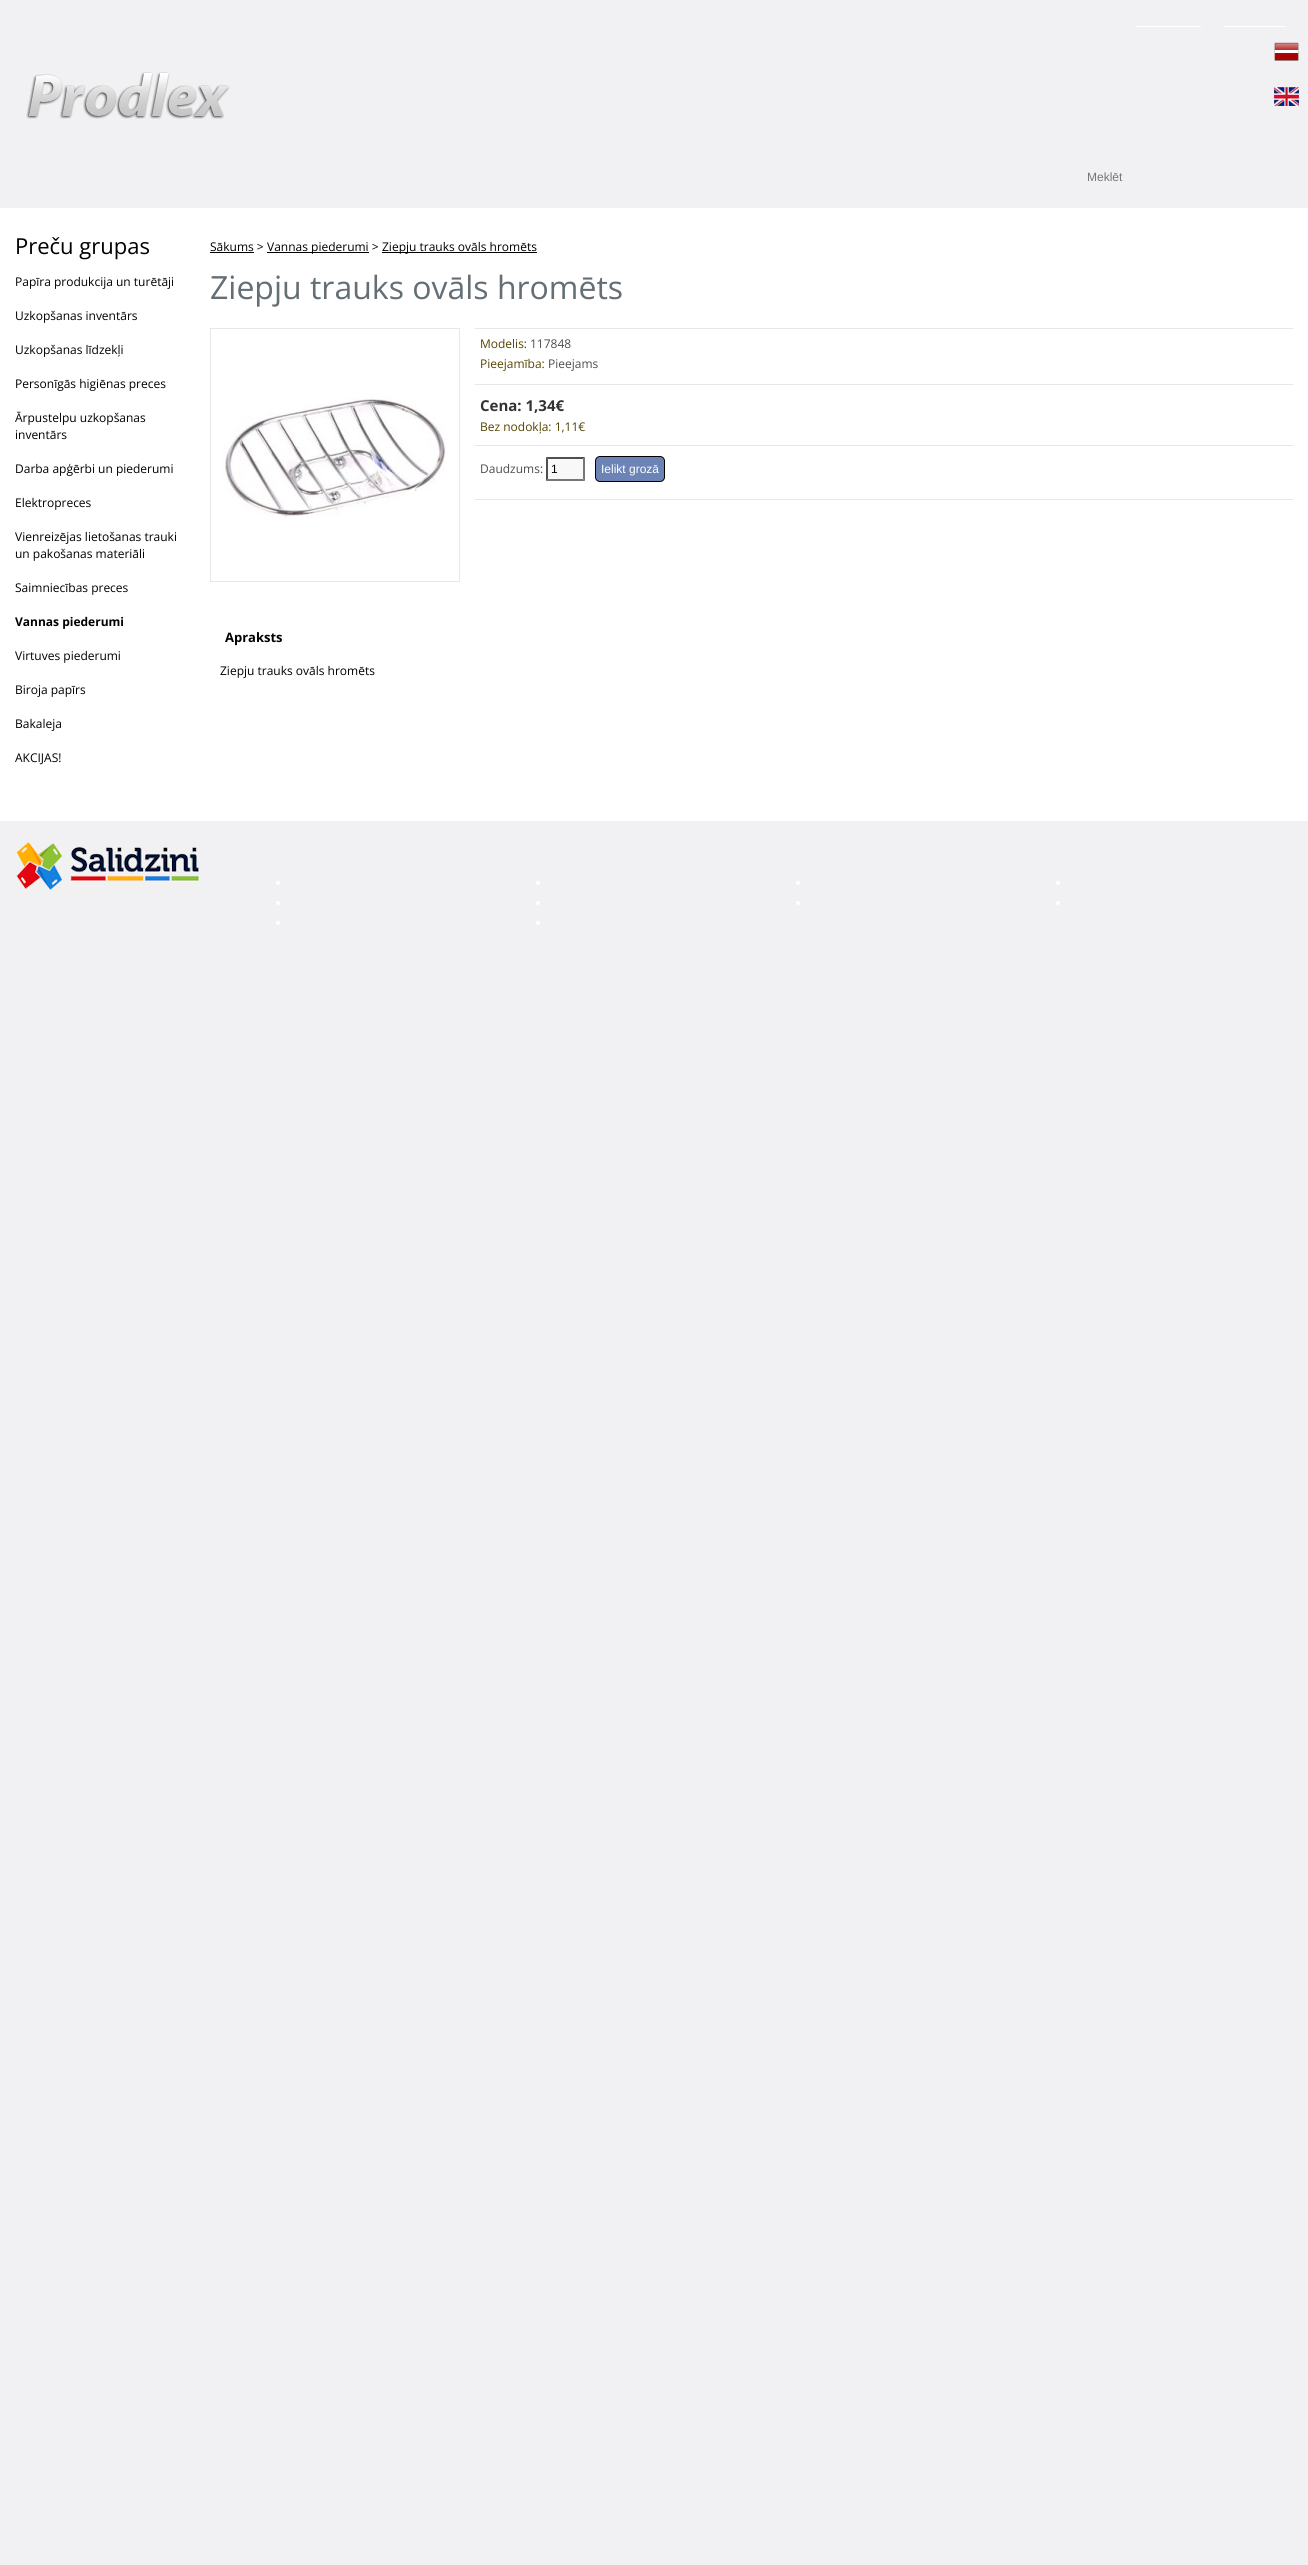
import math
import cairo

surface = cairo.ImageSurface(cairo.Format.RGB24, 1308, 2565)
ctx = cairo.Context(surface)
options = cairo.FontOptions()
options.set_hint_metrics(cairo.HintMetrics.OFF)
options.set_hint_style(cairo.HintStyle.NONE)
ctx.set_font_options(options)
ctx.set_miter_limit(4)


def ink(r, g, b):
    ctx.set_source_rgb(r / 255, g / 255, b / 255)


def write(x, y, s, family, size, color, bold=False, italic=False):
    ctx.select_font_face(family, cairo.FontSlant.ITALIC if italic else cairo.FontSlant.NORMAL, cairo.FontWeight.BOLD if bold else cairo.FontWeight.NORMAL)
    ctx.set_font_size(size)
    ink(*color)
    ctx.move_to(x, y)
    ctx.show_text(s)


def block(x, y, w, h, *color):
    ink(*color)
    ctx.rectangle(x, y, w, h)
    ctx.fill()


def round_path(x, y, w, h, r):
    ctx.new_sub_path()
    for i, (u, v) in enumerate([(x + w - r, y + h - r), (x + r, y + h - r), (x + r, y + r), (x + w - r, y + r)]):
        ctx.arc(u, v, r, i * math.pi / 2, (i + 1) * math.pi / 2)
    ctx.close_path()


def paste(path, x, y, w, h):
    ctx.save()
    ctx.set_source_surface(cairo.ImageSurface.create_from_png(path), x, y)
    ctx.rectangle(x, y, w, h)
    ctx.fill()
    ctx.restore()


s1 = dict(family="Liberation Sans", size=12, color=(117, 117, 117))
s2 = dict(family="Open Sans", size=22, color=(0, 0, 0))
s3 = dict(family="Open Sans", size=12, color=(0, 0, 0))
s4 = dict(family="Open Sans", size=12, color=(0, 0, 0), bold=True)
s5 = dict(family="Open Sans", size=32, color=(99, 110, 117))
s6 = dict(family="Open Sans", size=12, color=(85, 68, 0))
s7 = dict(family="Open Sans", size=12, color=(77, 77, 77))
s8 = dict(family="Open Sans", size=15, color=(51, 51, 51), bold=True)
s9 = dict(family="Liberation Sans", size=12, color=(0, 0, 0))
s10 = dict(family="Liberation Sans", size=12, color=(255, 255, 255))
s11 = dict(family="Open Sans", size=13, color=(0, 0, 0), bold=True)

ink(241, 241, 243)
ctx.paint()
block(1136, 26, 65, 1, 255, 255, 255)
block(1223, 26, 63, 1, 255, 255, 255)
paste("pic1.png", 26, 72, 204, 47)
paste("pic2.png", 1274, 42, 25, 19)
paste("pic3.png", 1274, 87, 25, 19)
write(1087, 181, "Meklēt", **s1)
block(0, 208, 1308, 613, 255, 255, 255)
write(15, 254, "Preču grupas", **s2)
write(15, 286, "Papīra produkcija un turētāji", **s3)
write(15, 320, "Uzkopšanas inventārs", **s3)
write(15, 354, "Uzkopšanas līdzekļi", **s3)
write(15, 388, "Personīgās higiēnas preces", **s3)
write(15, 422, "Ārpustelpu uzkopšanas", **s3)
write(15, 439, "inventārs", **s3)
write(15, 473, "Darba apģērbi un piederumi", **s3)
write(15, 507, "Elektropreces", **s3)
write(15, 541, "Vienreizējas lietošanas trauki", **s3)
write(15, 558, "un pakošanas materiāli", **s3)
write(15, 592, "Saimniecības preces", **s3)
write(15, 626, "Vannas piederumi", **s4)
write(15, 660, "Virtuves piederumi", **s3)
write(15, 694, "Biroja papīrs", **s3)
write(15, 728, "Bakaleja", **s3)
write(15, 762, "AKCIJAS!", **s3)
write(210, 251, "Sākums >", **s3)
block(210, 252, 44, 1, 0, 0, 0)
block(267, 252, 102, 1, 0, 0, 0)
write(267, 251, "Vannas piederumi >", **s3)
block(382, 252, 155, 1, 0, 0, 0)
write(382, 251, "Ziepju trauks ovāls hromēts", **s3)
write(210, 299, "Ziepju trauks ovāls hromēts", **s5)
ctx.rectangle(210.5, 328.5, 249, 253)
ink(231, 231, 231)
ctx.set_line_width(1)
ctx.stroke()
paste("pic4.png", 221, 396, 225, 122)
block(475, 328, 818, 1, 231, 231, 231)
block(475, 384, 818, 1, 231, 231, 231)
write(480, 348, "Modelis:", **s6)
write(530, 348, "117848", **s7)
write(480, 368, "Pieejamība:", **s6)
write(548, 368, "Pieejams", **s7)
block(475, 445, 818, 1, 231, 231, 231)
write(480, 411, "Cena: 1,34€", **s8)
write(480, 431, "Bez nodokļa: 1,11€", **s6)
block(475, 499, 818, 1, 231, 231, 231)
write(480, 473, "Daudzums:", **s7)
block(546, 457, 39, 24, 248, 248, 248)
ink(79, 79, 79)
ctx.new_path()
ctx.move_to(546, 457)
ctx.line_to(585, 457)
ctx.line_to(583, 459)
ctx.line_to(548, 459)
ctx.close_path()
ctx.fill()
ink(118, 118, 118)
ctx.new_path()
ctx.move_to(585, 457)
ctx.line_to(585, 481)
ctx.line_to(583, 479)
ctx.line_to(583, 459)
ctx.close_path()
ctx.fill()
ctx.new_path()
ctx.move_to(585, 481)
ctx.line_to(546, 481)
ctx.line_to(548, 479)
ctx.line_to(583, 479)
ctx.close_path()
ctx.fill()
ink(79, 79, 79)
ctx.new_path()
ctx.move_to(546, 481)
ctx.line_to(546, 457)
ctx.line_to(548, 459)
ctx.line_to(548, 479)
ctx.close_path()
ctx.fill()
write(551, 473, "1", **s9)
ink(108, 131, 181)
round_path(595.5, 456.5, 69, 25, 4.5)
ctx.fill_preserve()
ink(0, 0, 0)
ctx.stroke()
write(601, 473, "Ielikt grozā", **s10)
write(225, 642, "Apraksts", **s11)
write(220, 675, "Ziepju trauks ovāls hromēts", **s3)
paste("pic5.png", 15, 841, 185, 53)
ink(255, 255, 255)
ctx.arc(278, 883, 2, 0, 2 * math.pi)
ctx.fill()
ctx.arc(278, 903, 2, 0, 2 * math.pi)
ctx.fill()
ctx.arc(278, 923, 2, 0, 2 * math.pi)
ctx.fill()
ctx.arc(538, 883, 2, 0, 2 * math.pi)
ctx.fill()
ctx.arc(538, 903, 2, 0, 2 * math.pi)
ctx.fill()
ctx.arc(538, 923, 2, 0, 2 * math.pi)
ctx.fill()
ctx.arc(798, 883, 2, 0, 2 * math.pi)
ctx.fill()
ctx.arc(798, 903, 2, 0, 2 * math.pi)
ctx.fill()
ctx.arc(1058, 883, 2, 0, 2 * math.pi)
ctx.fill()
ctx.arc(1058, 903, 2, 0, 2 * math.pi)
ctx.fill()
surface.write_to_png("screenshot.png")
